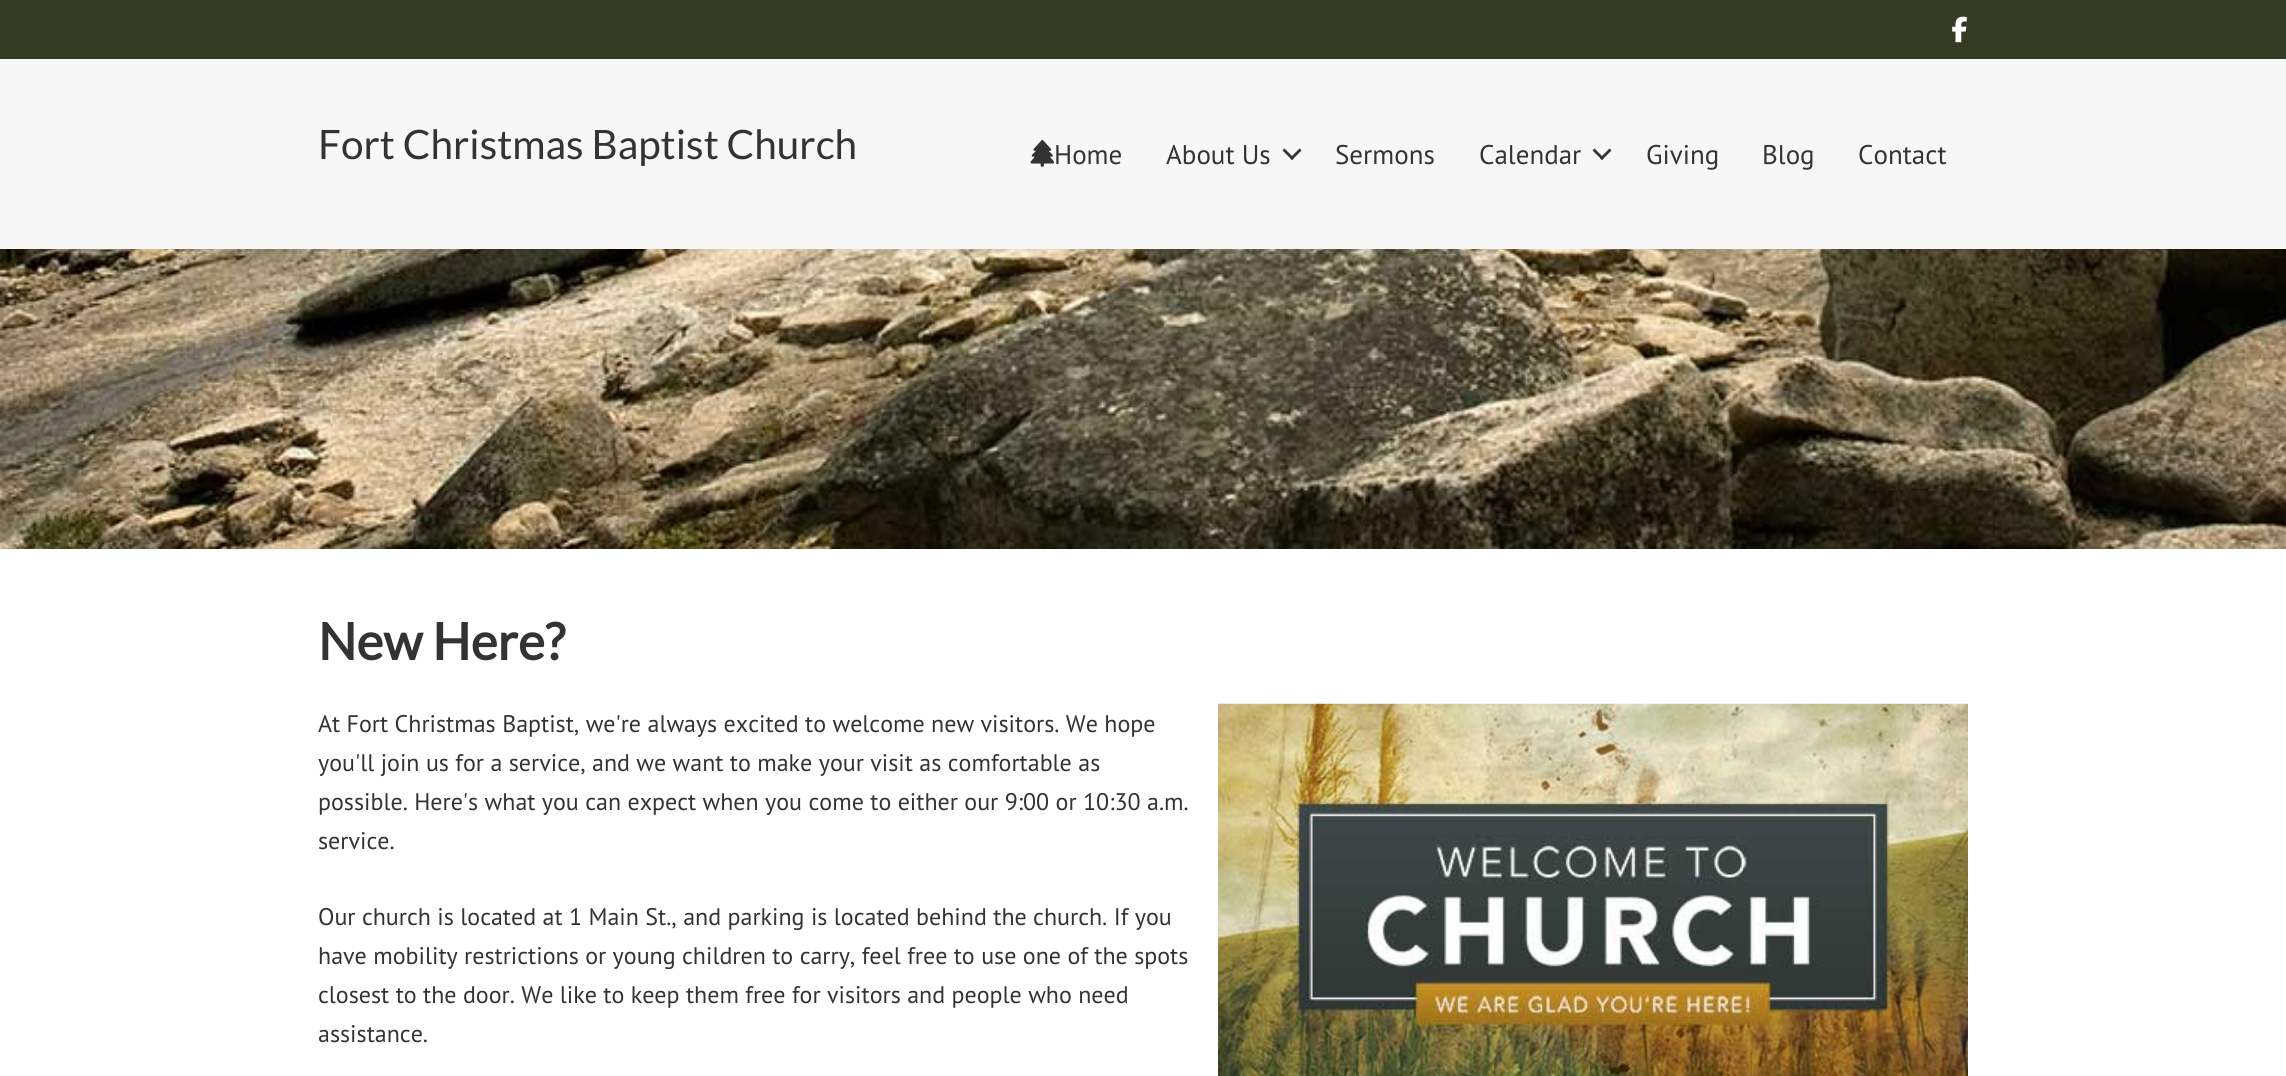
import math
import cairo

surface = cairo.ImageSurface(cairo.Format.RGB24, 2286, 1076)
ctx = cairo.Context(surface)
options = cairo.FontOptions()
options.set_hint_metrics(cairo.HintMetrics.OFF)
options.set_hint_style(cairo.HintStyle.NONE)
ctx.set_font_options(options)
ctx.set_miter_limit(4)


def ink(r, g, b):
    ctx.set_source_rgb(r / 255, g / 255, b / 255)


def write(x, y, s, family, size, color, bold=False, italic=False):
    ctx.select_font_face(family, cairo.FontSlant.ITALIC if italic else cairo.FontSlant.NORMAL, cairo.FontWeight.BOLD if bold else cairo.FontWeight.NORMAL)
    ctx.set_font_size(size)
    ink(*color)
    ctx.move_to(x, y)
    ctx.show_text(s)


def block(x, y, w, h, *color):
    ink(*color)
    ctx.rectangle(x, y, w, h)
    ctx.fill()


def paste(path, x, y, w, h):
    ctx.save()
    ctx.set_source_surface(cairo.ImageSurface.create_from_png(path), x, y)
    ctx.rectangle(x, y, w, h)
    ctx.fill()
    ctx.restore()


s1 = dict(family="Lato", size=40.5, color=(51, 51, 51))
s2 = dict(family="PT Sans", size=27, color=(51, 51, 51))
s3 = dict(family="Lato", size=51, color=(51, 51, 51), bold=True)
s4 = dict(family="PT Sans", size=24, color=(51, 51, 51))

ink(255, 255, 255)
ctx.paint()
block(0, 0, 2286, 59, 51, 59, 34)
paste("pic1.png", 1952, 16, 15, 27)
block(0, 59, 2286, 190, 247, 247, 247)
write(318, 159, "Fort Christmas Baptist Church", **s1)
paste("pic2.png", 1030, 139, 25, 28)
write(1054, 164, "Home", **s2)
write(1166, 164, "About Us", **s2)
ctx.new_path()
ctx.move_to(1299.5, 148.5)
ctx.line_to(1301.5, 150.5)
ctx.line_to(1292, 160)
ctx.line_to(1290, 158)
ctx.close_path()
ctx.fill()
ctx.new_path()
ctx.move_to(1284.5, 148.5)
ctx.line_to(1294, 158)
ctx.line_to(1292, 160)
ctx.line_to(1282.5, 150.5)
ctx.close_path()
ctx.fill()
write(1335, 164, "Sermons", **s2)
write(1479, 164, "Calendar", **s2)
ctx.new_path()
ctx.move_to(1609.5, 148.5)
ctx.line_to(1611.5, 150.5)
ctx.line_to(1602, 160)
ctx.line_to(1600, 158)
ctx.close_path()
ctx.fill()
ctx.new_path()
ctx.move_to(1594.5, 148.5)
ctx.line_to(1604, 158)
ctx.line_to(1602, 160)
ctx.line_to(1592.5, 150.5)
ctx.close_path()
ctx.fill()
write(1646, 164, "Giving", **s2)
write(1762, 164, "Blog", **s2)
write(1858, 164, "Contact", **s2)
paste("pic3.png", 0, 249, 2286, 300)
write(318, 660, "New Here?", **s3)
write(318, 732, "At Fort Christmas Baptist, we're always excited to welcome new visitors. We hope", **s4)
paste("pic4.png", 1218, 703, 750, 373)
write(318, 771, "you'll join us for a service, and we want to make your visit as comfortable as", **s4)
write(318, 810, "possible. Here's what you can expect when you come to either our 9:00 or 10:30 a.m.", **s4)
write(318, 849, "service.", **s4)
write(318, 925, "Our church is located at 1 Main St., and parking is located behind the church. If you", **s4)
write(318, 964, "have mobility restrictions or young children to carry, feel free to use one of the spots", **s4)
write(318, 1003, "closest to the door. We like to keep them free for visitors and people who need", **s4)
write(318, 1042, "assistance.", **s4)
surface.write_to_png("screenshot.png")
